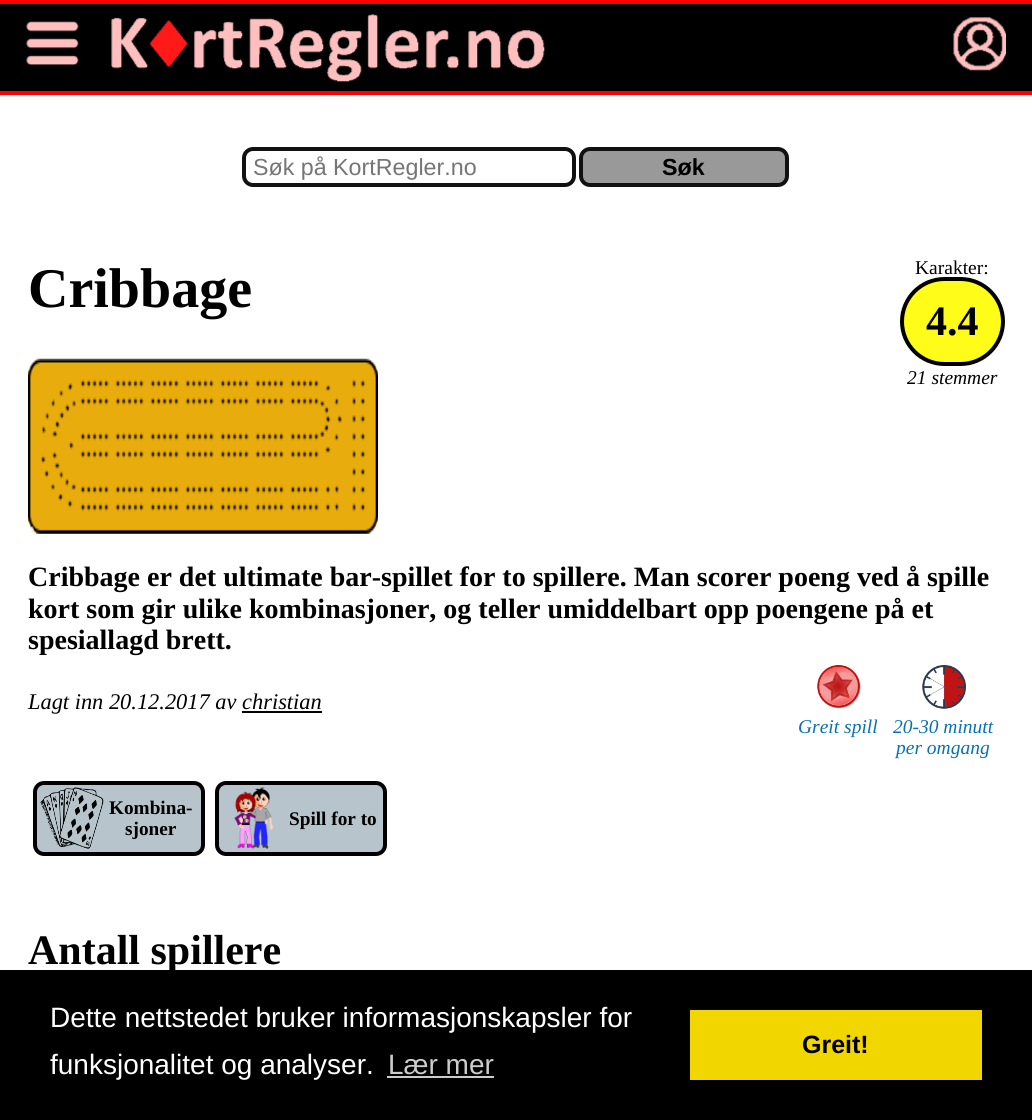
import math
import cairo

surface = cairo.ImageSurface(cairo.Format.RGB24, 1032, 1120)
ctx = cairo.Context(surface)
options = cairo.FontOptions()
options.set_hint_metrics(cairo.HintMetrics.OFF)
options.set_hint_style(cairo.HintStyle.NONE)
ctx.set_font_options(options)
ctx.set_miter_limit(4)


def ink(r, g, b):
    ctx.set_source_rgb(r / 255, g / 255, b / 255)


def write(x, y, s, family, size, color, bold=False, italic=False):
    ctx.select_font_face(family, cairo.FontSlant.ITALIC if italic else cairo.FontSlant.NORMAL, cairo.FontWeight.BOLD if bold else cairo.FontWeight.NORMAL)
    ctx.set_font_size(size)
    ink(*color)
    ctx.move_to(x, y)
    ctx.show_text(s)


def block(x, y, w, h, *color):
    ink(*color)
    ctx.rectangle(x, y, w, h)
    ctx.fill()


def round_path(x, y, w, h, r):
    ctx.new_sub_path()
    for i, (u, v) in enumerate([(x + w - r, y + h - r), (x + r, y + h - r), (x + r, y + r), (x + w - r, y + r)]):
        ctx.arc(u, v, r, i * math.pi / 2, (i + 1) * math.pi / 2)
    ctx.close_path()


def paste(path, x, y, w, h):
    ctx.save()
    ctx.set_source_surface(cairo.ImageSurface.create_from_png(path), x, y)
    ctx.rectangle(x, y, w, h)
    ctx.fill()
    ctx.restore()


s1 = dict(family="Liberation Sans", size=23.25, color=(117, 117, 117))
s2 = dict(family="Liberation Sans", size=23.25, color=(0, 0, 0), bold=True)
s3 = dict(family="Liberation Serif", size=56, color=(0, 0, 0), bold=True)
s4 = dict(family="Liberation Serif", size=19.5, color=(0, 0, 0))
s5 = dict(family="Liberation Serif", size=42, color=(0, 0, 0), bold=True)
s6 = dict(family="Liberation Serif", size=19.5, color=(0, 0, 0), italic=True)
s7 = dict(family="Liberation Serif", size=28, color=(0, 0, 0), bold=True)
s8 = dict(family="Liberation Serif", size=22.4, color=(0, 0, 0), italic=True)
s9 = dict(family="Liberation Serif", size=19.5, color=(9, 113, 178), italic=True)
s10 = dict(family="Liberation Serif", size=19.25, color=(0, 0, 0), bold=True)
s11 = dict(family="Liberation Sans", size=28, color=(255, 255, 255))
s12 = dict(family="Liberation Sans", size=28, color=(204, 204, 204))
s13 = dict(family="Liberation Sans", size=25, color=(0, 0, 0), bold=True)

ink(255, 255, 255)
ctx.paint()
block(0, 4, 1032, 87, 0, 0, 0)
block(0, 0, 1032, 4, 255, 0, 0)
block(0, 91, 1032, 4, 255, 0, 0)
paste("pic1.png", 111, 14, 434, 68)
paste("pic2.png", 953, 17, 53, 54)
paste("pic3.png", 26, 21, 53, 45)
round_path(244, 149, 330, 36, 9)
ink(17, 17, 17)
ctx.set_line_width(4)
ctx.stroke()
write(253, 175, "Søk på KortRegler.no", **s1)
ink(153, 153, 153)
round_path(581, 149, 206, 36, 9)
ctx.fill_preserve()
ink(17, 17, 17)
ctx.stroke()
write(662, 175, "Søk", **s2)
write(28, 307, "Cribbage", **s3)
write(915, 274, "Karakter:", **s4)
ink(255, 252, 25)
round_path(902, 279, 101, 85, 42.5)
ctx.fill_preserve()
ink(0, 0, 0)
ctx.stroke()
write(926, 335, "4.4", **s5)
write(907, 384, "21 stemmer", **s6)
paste("pic4.png", 28, 358, 350, 176)
write(28, 586, "Cribbage er det ultimate bar-spillet for to spillere. Man scorer poeng ved å spille", **s7)
write(28, 618, "kort som gir ulike kombinasjoner, og teller umiddelbart opp poengene på et", **s7)
write(28, 649, "spesiallagd brett.", **s7)
write(28, 709, "Lagt inn 20.12.2017 av christian", **s8)
block(242, 711, 80, 2, 0, 0, 0)
paste("pic5.png", 817, 665, 44, 44)
write(798, 733, "Greit spill", **s9)
paste("pic6.png", 922, 665, 44, 44)
write(893, 733, "20-30 minutt", **s9)
write(896, 754, "per omgang", **s9)
ink(183, 196, 204)
round_path(35, 783, 168, 71, 9)
ctx.fill_preserve()
ink(0, 0, 0)
ctx.stroke()
paste("pic7.png", 40, 787, 64, 62)
write(109, 814, "Kombina-", **s10)
write(125, 835, "sjoner", **s10)
ink(183, 196, 204)
round_path(217, 783, 168, 71, 9)
ctx.fill_preserve()
ink(0, 0, 0)
ctx.stroke()
paste("pic8.png", 234, 787, 39, 62)
write(289, 825, "Spill for to", **s10)
write(28, 964, "Antall spillere", **s5)
block(0, 970, 1032, 150, 0, 0, 0)
write(50, 1027, "Dette nettstedet bruker informasjonskapsler for", **s11)
write(50, 1074, "funksjonalitet og analyser.", **s11)
write(388, 1074, "Lær mer", **s12)
block(387, 1076, 107, 2, 204, 204, 204)
block(690, 1010, 292, 70, 241, 214, 0)
write(802, 1053, "Greit!", **s13)
surface.write_to_png("screenshot.png")
